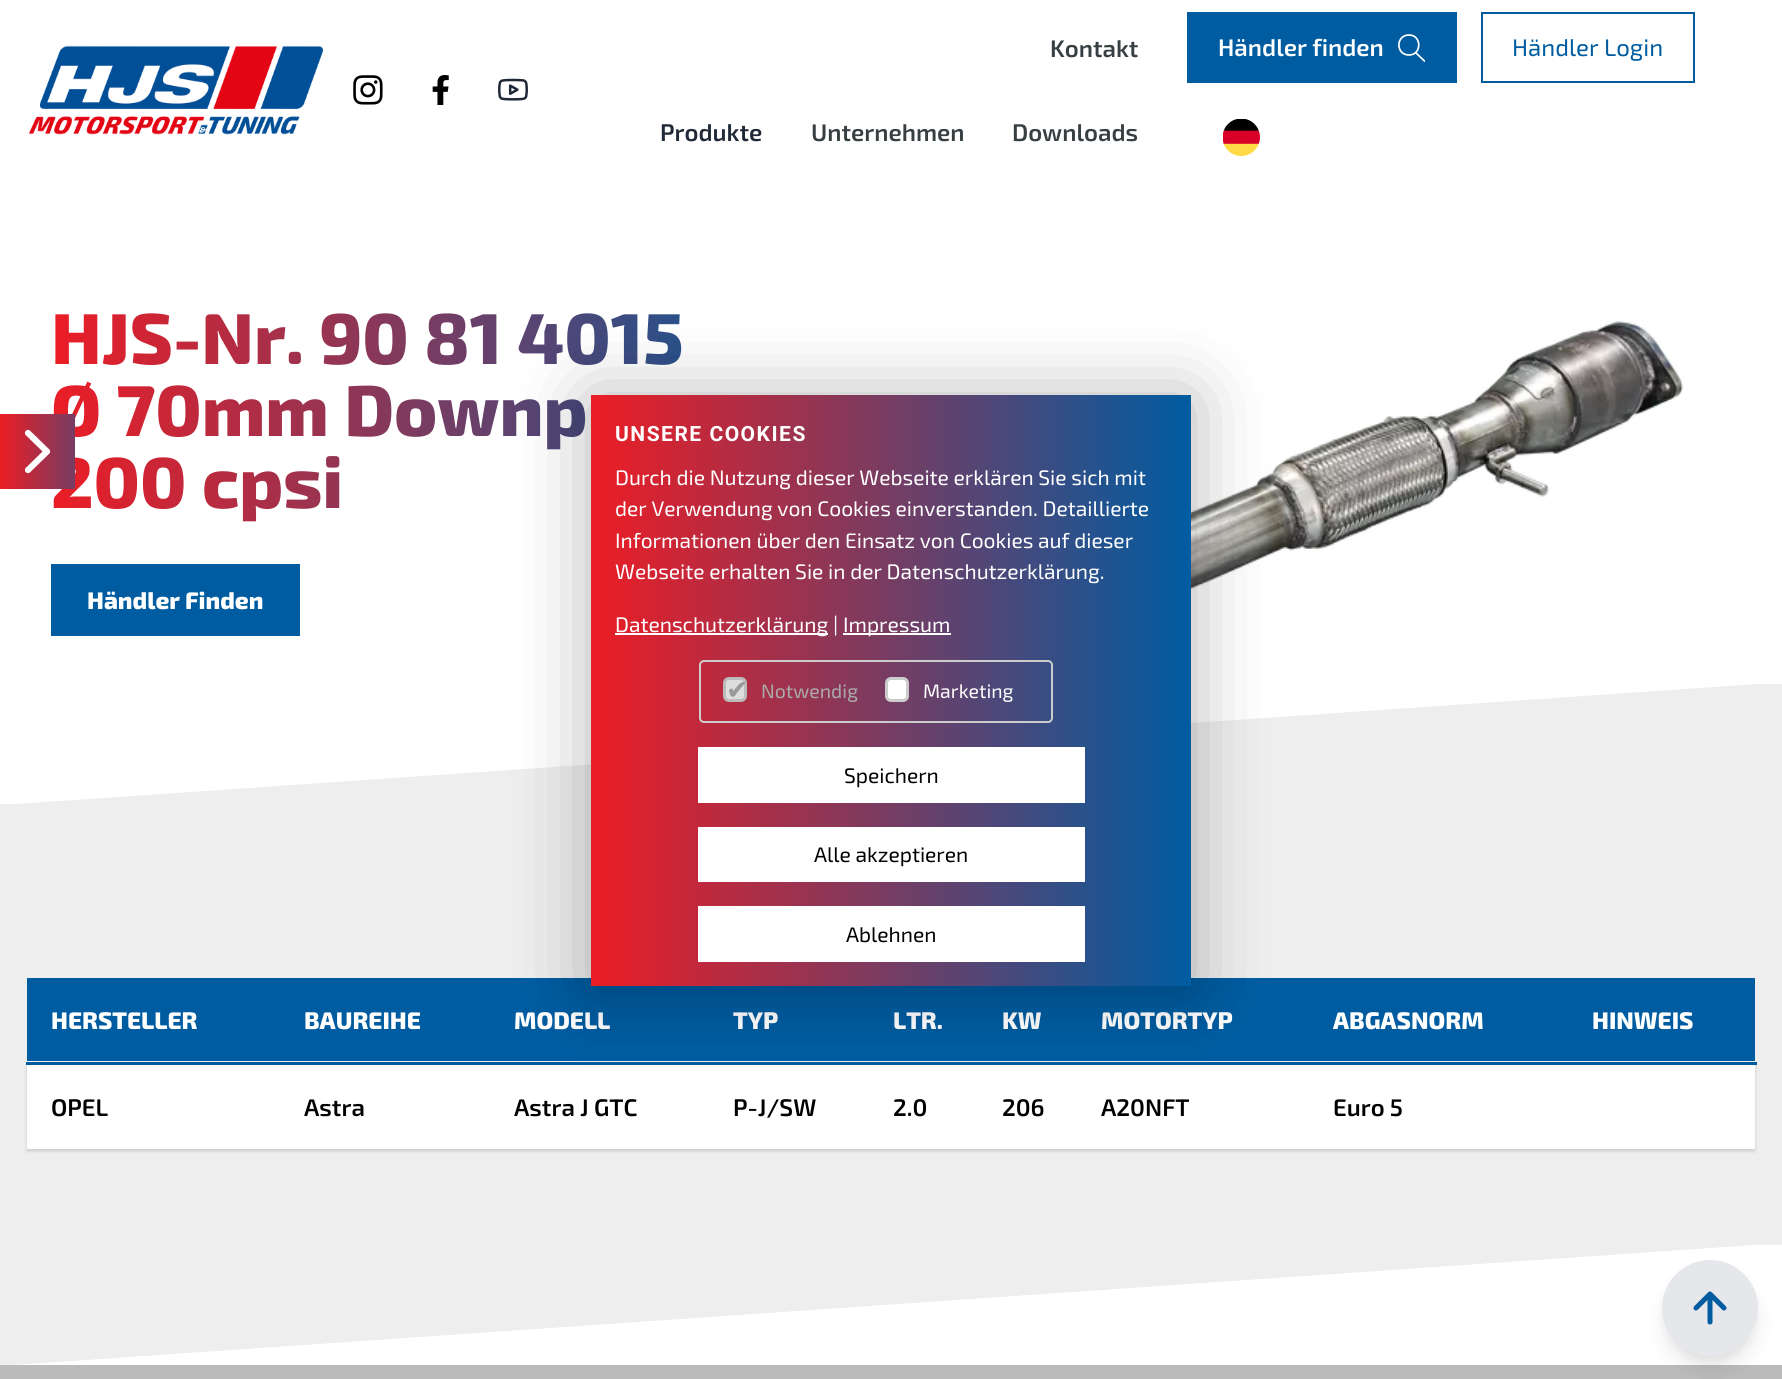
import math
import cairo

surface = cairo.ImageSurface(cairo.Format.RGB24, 1782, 1379)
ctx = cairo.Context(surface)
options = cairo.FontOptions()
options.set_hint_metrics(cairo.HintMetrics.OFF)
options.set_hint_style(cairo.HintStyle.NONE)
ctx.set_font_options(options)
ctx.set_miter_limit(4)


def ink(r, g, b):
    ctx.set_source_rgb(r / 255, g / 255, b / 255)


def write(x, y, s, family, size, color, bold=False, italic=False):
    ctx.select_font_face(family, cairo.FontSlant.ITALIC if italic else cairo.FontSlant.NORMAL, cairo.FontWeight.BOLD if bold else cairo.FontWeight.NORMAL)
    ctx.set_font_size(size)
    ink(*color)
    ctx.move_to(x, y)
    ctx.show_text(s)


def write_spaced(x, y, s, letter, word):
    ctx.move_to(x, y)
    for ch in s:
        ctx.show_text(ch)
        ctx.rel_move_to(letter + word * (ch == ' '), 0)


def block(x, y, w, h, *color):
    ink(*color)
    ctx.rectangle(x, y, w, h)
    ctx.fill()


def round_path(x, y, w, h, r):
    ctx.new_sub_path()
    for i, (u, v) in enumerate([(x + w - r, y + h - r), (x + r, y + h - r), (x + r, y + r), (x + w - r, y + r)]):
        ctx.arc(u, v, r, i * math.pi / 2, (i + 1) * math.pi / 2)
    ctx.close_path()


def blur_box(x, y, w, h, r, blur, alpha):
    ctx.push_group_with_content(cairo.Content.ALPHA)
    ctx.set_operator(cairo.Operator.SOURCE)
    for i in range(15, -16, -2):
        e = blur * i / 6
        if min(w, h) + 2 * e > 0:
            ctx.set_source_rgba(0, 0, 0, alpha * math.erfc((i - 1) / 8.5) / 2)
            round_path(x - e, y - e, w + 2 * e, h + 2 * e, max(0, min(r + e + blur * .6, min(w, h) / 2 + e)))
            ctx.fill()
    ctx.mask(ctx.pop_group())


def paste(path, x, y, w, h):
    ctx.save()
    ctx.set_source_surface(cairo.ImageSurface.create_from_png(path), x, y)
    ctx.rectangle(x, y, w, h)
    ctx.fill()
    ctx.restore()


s1 = dict(family="Exo 2 SemiBold", size=24, color=(55, 63, 66))
s2 = dict(family="Exo 2 SemiBold", size=24, color=(31, 41, 55))
s3 = dict(family="Exo 2 SemiBold", size=24, color=(255, 255, 255))
s4 = dict(family="Exo 2", size=24, color=(0, 92, 161))
s5 = dict(family="Exo 2 ExtraBold", size=24, color=(255, 255, 255))
s6 = dict(family="Exo 2 SemiBold", size=24, color=(0, 0, 0))
s7 = dict(family="Exo 2", size=21, color=(255, 255, 255))
s8 = dict(family="DejaVu Sans", size=27, color=(153, 153, 153))
s9 = dict(family="Exo 2", size=19.5, color=(170, 170, 170))
s10 = dict(family="Exo 2", size=19.5, color=(255, 255, 255))
s11 = dict(family="Exo 2", size=21, color=(0, 0, 0))

ink(255, 255, 255)
ctx.paint()
paste("pic1.png", 29, 45, 295, 90)
paste("pic2.png", 353, 75, 30, 30)
paste("pic3.png", 432, 75, 17, 30)
paste("pic4.png", 498, 78, 30, 23)
write(1050, 57, "Kontakt", **s1)
write(660, 141, "Produkte", **s2)
write(811, 141, "Unternehmen", **s1)
write(1012, 141, "Downloads", **s1)
block(1187, 12, 270, 71, 0, 92, 161)
write(1218, 56, "Händler finden", **s3)
ctx.new_path()
ctx.move_to(1409, 55)
ctx.curve_to(1422, 55, 1422, 35, 1409, 35)
ctx.curve_to(1395.5, 35, 1395.5, 55, 1409, 55)
ctx.close_path()
ctx.set_line_width(1.7)
ctx.set_line_cap(cairo.LineCap.ROUND)
ctx.set_line_join(cairo.LineJoin.ROUND)
ctx.stroke()
ctx.save()
ctx.rectangle(1395, 32, 30, 30)
ctx.clip()
ctx.new_path()
ctx.move_to(1425, 61.5)
ctx.line_to(1416, 53)
ctx.stroke()
ctx.restore()
ctx.rectangle(1482, 13, 212, 69)
ink(0, 92, 161)
ctx.set_line_width(2)
ctx.set_line_cap(cairo.LineCap.BUTT)
ctx.set_line_join(cairo.LineJoin.MITER)
ctx.stroke()
write(1512, 56, "Händler Login", **s4)
paste("pic5.png", 1223, 119, 37, 37)
ctx.select_font_face("Exo 2 ExtraBold")
ctx.set_font_size(72)
gradient = cairo.LinearGradient(51, 408, 819, 408)
gradient.add_color_stop_rgba(0, 0.925, 0.114, 0.145, 1)
gradient.add_color_stop_rgba(1, 0, 0.361, 0.631, 1)
ctx.set_source(gradient)
ctx.move_to(51, 436)
ctx.show_text("Ø 70mm Downp")
ctx.move_to(51, 508)
ctx.show_text("200 cpsi")
gradient = cairo.LinearGradient(0, 452, 150, 452)
gradient.add_color_stop_rgba(0, 0.925, 0.114, 0.145, 1)
gradient.add_color_stop_rgba(1, 0, 0.361, 0.631, 1)
ctx.set_source(gradient)
ctx.rectangle(0, 414, 75, 75)
ctx.fill()
ctx.new_path()
ctx.move_to(28, 470)
ctx.line_to(47, 451.5)
ctx.line_to(28, 433)
ink(255, 255, 255)
ctx.set_line_width(6.2)
ctx.set_line_cap(cairo.LineCap.ROUND)
ctx.set_line_join(cairo.LineJoin.ROUND)
ctx.stroke()
gradient = cairo.LinearGradient(51, 408, 819, 408)
gradient.add_color_stop_rgba(0, 0.925, 0.114, 0.145, 1)
gradient.add_color_stop_rgba(1, 0, 0.361, 0.631, 1)
ctx.set_source(gradient)
ctx.move_to(51, 364)
ctx.show_text("HJS-Nr. 90 81 4015")
block(51, 564, 249, 72, 0, 92, 161)
write(87, 609, "Händler Finden", **s5)
paste("pic6.png", 1191, 321, 492, 268)
ink(238, 238, 238)
ctx.new_path()
ctx.move_to(16, 804)
ctx.line_to(1782, 804)
ctx.line_to(1782, 684)
ctx.line_to(1757, 684)
ctx.close_path()
ctx.fill()
block(0, 804, 1782, 441, 238, 238, 238)
block(27, 978, 1728, 83, 0, 92, 161)
ink(0, 0, 0)
blur_box(27, 1065, 1728, 86, 0, 1.5, 0.06)
blur_box(27, 1065, 1728, 86, 0, 2, 0.1)
block(26, 1062, 1731, 3, 0, 92, 161)
write(51, 1029, "HERSTELLER", **s5)
write(304, 1029, "BAUREIHE", **s5)
write(514, 1029, "MODELL", **s5)
write(733, 1029, "TYP", **s5)
write(893, 1029, "LTR.", **s5)
write(1002, 1029, "KW", **s5)
write(1101, 1029, "MOTORTYP", **s5)
write(1333, 1029, "ABGASNORM", **s5)
write(1592, 1029, "HINWEIS", **s5)
block(27, 1065, 1728, 84, 255, 255, 255)
write(51, 1116, "OPEL", **s6)
write(304, 1116, "Astra", **s6)
write(514, 1116, "Astra J GTC", **s6)
write(733, 1116, "P-J/SW", **s6)
write(893, 1116, "2.0", **s6)
write(1002, 1116, "206", **s6)
write(1101, 1116, "A20NFT", **s6)
write(1333, 1116, "Euro 5", **s6)
ink(238, 238, 238)
ctx.new_path()
ctx.move_to(0, 1245)
ctx.line_to(1757, 1245)
ctx.line_to(16, 1365)
ctx.line_to(0, 1365)
ctx.close_path()
ctx.fill()
ink(255, 255, 255)
ctx.new_path()
ctx.move_to(16, 1365)
ctx.line_to(1782, 1365)
ctx.line_to(1782, 1245)
ctx.line_to(1757, 1245)
ctx.close_path()
ctx.fill()
ink(0, 0, 0)
blur_box(591, 398, 600, 591, 0, 37.5, 0.3)
gradient = cairo.LinearGradient(591, 690, 1191, 690)
gradient.add_color_stop_rgba(0, 0.925, 0.114, 0.145, 1)
gradient.add_color_stop_rgba(1, 0, 0.361, 0.631, 1)
ctx.set_source(gradient)
ctx.rectangle(591, 395, 600, 591)
ctx.fill()
ctx.select_font_face("Roboto", cairo.FontSlant.NORMAL, cairo.FontWeight.BOLD)
ctx.set_font_size(21)
ink(255, 255, 255)
write_spaced(615, 441, "UNSERE COOKIES", 1.5, 0)
write(615, 485, "Durch die Nutzung dieser Webseite erklären Sie sich mit", **s7)
write(615, 516, "der Verwendung von Cookies einverstanden. Detaillierte", **s7)
write(615, 548, "Informationen über den Einsatz von Cookies auf dieser", **s7)
write(615, 579, "Webseite erhalten Sie in der Datenschutzerklärung.", **s7)
block(615, 633, 213, 2, 255, 255, 255)
write(615, 632, "Datenschutzerklärung |", **s7)
block(843, 633, 108, 2, 255, 255, 255)
write(843, 632, "Impressum", **s7)
round_path(700, 661, 352, 61, 4)
ink(204, 204, 204)
ctx.set_line_width(2)
ctx.set_line_cap(cairo.LineCap.BUTT)
ctx.set_line_join(cairo.LineJoin.MITER)
ctx.stroke()
ink(221, 221, 221)
round_path(724.5, 678.5, 21, 22, 4.5)
ctx.fill_preserve()
ink(187, 187, 187)
ctx.set_line_width(3)
ctx.stroke()
write(726, 699, "✔", **s8)
write(761, 698, "Notwendig", **s9)
ink(255, 255, 255)
round_path(886.5, 678.5, 21, 22, 4.5)
ctx.fill_preserve()
ink(204, 204, 204)
ctx.stroke()
write(923, 698, "Marketing", **s10)
block(698, 747, 387, 56, 255, 255, 255)
write(844, 783, "Speichern", **s11)
block(698, 827, 387, 55, 255, 255, 255)
write(814, 862, "Alle akzeptieren", **s11)
block(698, 906, 387, 56, 255, 255, 255)
write(846, 942, "Ablehnen", **s11)
block(0, 1365, 1782, 14, 187, 187, 187)
ink(0, 0, 0)
blur_box(1665, 1269, 90, 90, 45, 4.5, 0.05)
blur_box(1667, 1280, 87, 87, 43.5, 11, 0.1)
ink(229, 231, 235)
ctx.arc(1710, 1308, 48, 0, 2 * math.pi)
ctx.fill()
ctx.new_path()
ctx.move_to(1710, 1322)
ctx.line_to(1710, 1294)
ctx.move_to(1696, 1308)
ctx.line_to(1710, 1294)
ctx.line_to(1724, 1308)
ink(0, 92, 161)
ctx.set_line_width(5)
ctx.set_line_cap(cairo.LineCap.ROUND)
ctx.set_line_join(cairo.LineJoin.ROUND)
ctx.stroke()
surface.write_to_png("screenshot.png")
